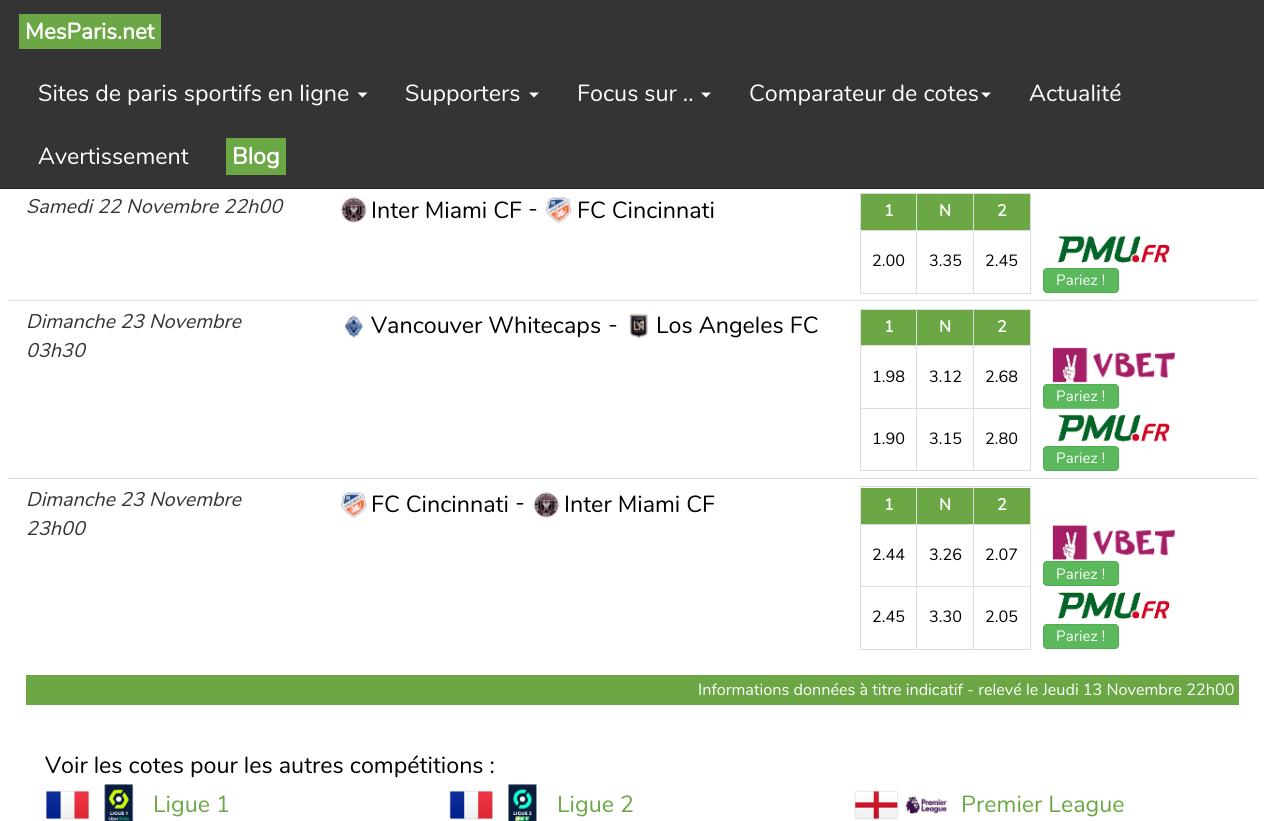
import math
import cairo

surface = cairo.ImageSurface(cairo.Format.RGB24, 1264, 821)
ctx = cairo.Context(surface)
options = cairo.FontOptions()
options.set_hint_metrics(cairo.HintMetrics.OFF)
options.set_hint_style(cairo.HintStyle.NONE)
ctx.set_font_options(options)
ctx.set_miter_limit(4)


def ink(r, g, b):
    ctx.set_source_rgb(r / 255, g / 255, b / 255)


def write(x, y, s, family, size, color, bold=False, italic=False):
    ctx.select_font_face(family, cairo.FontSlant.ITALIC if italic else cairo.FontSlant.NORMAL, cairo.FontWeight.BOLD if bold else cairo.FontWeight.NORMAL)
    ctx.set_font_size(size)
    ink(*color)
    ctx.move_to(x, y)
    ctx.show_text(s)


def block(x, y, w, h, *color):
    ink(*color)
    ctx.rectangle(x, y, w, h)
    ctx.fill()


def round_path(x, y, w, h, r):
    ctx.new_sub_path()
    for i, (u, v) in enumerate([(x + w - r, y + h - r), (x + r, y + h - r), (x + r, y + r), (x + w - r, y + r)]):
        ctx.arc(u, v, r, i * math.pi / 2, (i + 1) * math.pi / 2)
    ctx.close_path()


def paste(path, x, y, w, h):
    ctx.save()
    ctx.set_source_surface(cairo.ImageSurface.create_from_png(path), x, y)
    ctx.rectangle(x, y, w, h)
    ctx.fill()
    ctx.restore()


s1 = dict(family="Nunito", size=22.5, color=(255, 255, 255), bold=True)
s2 = dict(family="Nunito", size=23.3, color=(255, 255, 255))
s3 = dict(family="Nunito", size=23.3, color=(255, 255, 255), bold=True)
s4 = dict(family="Nunito", size=19.8, color=(52, 52, 52), italic=True)
s5 = dict(family="Nunito", size=23.3, color=(0, 0, 0))
s6 = dict(family="Nunito", size=16.25, color=(255, 255, 255), bold=True)
s7 = dict(family="Nunito", size=16.25, color=(0, 0, 0))
s8 = dict(family="Nunito", size=15, color=(255, 255, 255))
s9 = dict(family="Nunito", size=16.25, color=(255, 255, 255))
s10 = dict(family="Nunito", size=23.3, color=(107, 168, 69))

ink(255, 255, 255)
ctx.paint()
block(0, 0, 1264, 188, 52, 52, 52)
block(0, 188, 1264, 1, 35, 35, 35)
block(19, 14, 142, 35, 107, 168, 69)
write(25, 39, "MesParis.net", **s1)
write(38, 101, "Sites de paris sportifs en ligne", **s2)
ctx.new_path()
ctx.move_to(357.5, 92.5)
ctx.line_to(367.5, 92.5)
ctx.line_to(362.5, 97.5)
ctx.close_path()
ctx.fill()
write(405, 101, "Supporters", **s2)
ctx.new_path()
ctx.move_to(529, 92.5)
ctx.line_to(539, 92.5)
ctx.line_to(534, 97.5)
ctx.close_path()
ctx.fill()
write(577, 101, "Focus sur ..", **s2)
ctx.new_path()
ctx.move_to(701, 92.5)
ctx.line_to(711, 92.5)
ctx.line_to(706, 97.5)
ctx.close_path()
ctx.fill()
write(749, 101, "Comparateur de cotes", **s2)
ctx.new_path()
ctx.move_to(981, 92.5)
ctx.line_to(991, 92.5)
ctx.line_to(986, 97.5)
ctx.close_path()
ctx.fill()
write(1029, 101, "Actualité", **s2)
write(38, 164, "Avertissement", **s2)
block(226, 138, 60, 37, 107, 168, 69)
write(232, 164, "Blog", **s3)
write(26, 213, "Samedi 22 Novembre 22h00", **s4)
paste("pic1.png", 341, 197, 26, 26)
write(371, 218, "Inter Miami CF", **s5)
write(528, 216, "-", **s5)
paste("pic2.png", 546, 197, 26, 26)
write(577, 218, "FC Cincinnati", **s5)
block(861, 194, 112, 36, 107, 168, 69)
block(973, 193, 58, 1, 221, 221, 221)
block(973, 230, 58, 1, 221, 221, 221)
block(1030, 230, 1, 64, 221, 221, 221)
block(973, 293, 58, 1, 221, 221, 221)
block(973, 230, 1, 64, 221, 221, 221)
block(916, 230, 58, 1, 221, 221, 221)
block(973, 193, 1, 38, 221, 221, 221)
block(916, 193, 58, 1, 221, 221, 221)
block(916, 293, 58, 1, 221, 221, 221)
block(916, 230, 1, 64, 221, 221, 221)
block(860, 230, 58, 1, 221, 221, 221)
block(916, 193, 1, 38, 221, 221, 221)
block(860, 193, 58, 1, 221, 221, 221)
block(860, 293, 58, 1, 221, 221, 221)
block(860, 230, 1, 64, 221, 221, 221)
block(860, 193, 1, 38, 221, 221, 221)
write(884, 216, "1", **s6)
write(939, 216, "N", **s6)
block(974, 194, 56, 36, 107, 168, 69)
block(1030, 193, 1, 38, 221, 221, 221)
write(997, 216, "2", **s6)
write(872, 266, "2.00", **s7)
write(929, 266, "3.35", **s7)
write(985, 266, "2.45", **s7)
paste("pic3.png", 1057, 235, 113, 28)
ink(92, 184, 92)
round_path(1043.5, 268.5, 75, 24, 3.5)
ctx.fill_preserve()
ink(76, 174, 76)
ctx.set_line_width(1)
ctx.stroke()
write(1056, 285, "Pariez !", **s8)
block(8, 300, 1250, 1, 221, 221, 221)
write(26, 328, "Dimanche 23 Novembre", **s4)
write(26, 357, "03h30", **s4)
paste("pic4.png", 344, 315, 19, 23)
write(371, 333, "Vancouver Whitecaps", **s5)
write(608, 332, "-", **s5)
paste("pic5.png", 629, 313, 19, 26)
write(656, 333, "Los Angeles FC", **s5)
block(861, 310, 112, 35, 107, 168, 69)
block(973, 309, 58, 1, 221, 221, 221)
block(973, 345, 58, 1, 221, 221, 221)
block(973, 408, 58, 1, 221, 221, 221)
block(1030, 408, 1, 63, 221, 221, 221)
block(973, 470, 58, 1, 221, 221, 221)
block(973, 408, 1, 63, 221, 221, 221)
block(916, 408, 58, 1, 221, 221, 221)
block(973, 345, 1, 64, 221, 221, 221)
block(916, 345, 58, 1, 221, 221, 221)
block(973, 309, 1, 37, 221, 221, 221)
block(916, 309, 58, 1, 221, 221, 221)
block(916, 470, 58, 1, 221, 221, 221)
block(916, 408, 1, 63, 221, 221, 221)
block(860, 408, 58, 1, 221, 221, 221)
block(916, 345, 1, 64, 221, 221, 221)
block(860, 345, 58, 1, 221, 221, 221)
block(916, 309, 1, 37, 221, 221, 221)
block(860, 309, 58, 1, 221, 221, 221)
block(860, 470, 58, 1, 221, 221, 221)
block(860, 408, 1, 63, 221, 221, 221)
block(860, 345, 1, 64, 221, 221, 221)
block(860, 309, 1, 37, 221, 221, 221)
write(884, 332, "1", **s6)
write(939, 332, "N", **s6)
block(974, 310, 56, 35, 107, 168, 69)
block(1030, 345, 1, 64, 221, 221, 221)
block(1030, 309, 1, 37, 221, 221, 221)
write(997, 332, "2", **s6)
write(872, 382, "1.98", **s7)
write(929, 382, "3.12", **s7)
write(985, 382, "2.68", **s7)
paste("pic6.png", 1052, 347, 123, 36)
ink(92, 184, 92)
round_path(1043.5, 384.5, 75, 24, 3.5)
ctx.fill_preserve()
ink(76, 174, 76)
ctx.stroke()
write(1056, 401, "Pariez !", **s8)
write(872, 444, "1.90", **s7)
write(929, 444, "3.15", **s7)
write(985, 444, "2.80", **s7)
paste("pic7.png", 1044, 408, 126, 34)
ink(92, 184, 92)
round_path(1043.5, 446.5, 75, 24, 3.5)
ctx.fill_preserve()
ink(76, 174, 76)
ctx.stroke()
write(1056, 463, "Pariez !", **s8)
block(8, 478, 1250, 1, 221, 221, 221)
write(26, 506, "Dimanche 23 Novembre", **s4)
write(26, 535, "23h00", **s4)
paste("pic2.png", 341, 492, 26, 26)
write(371, 512, "FC Cincinnati", **s5)
write(515, 510, "-", **s5)
paste("pic8.png", 533, 492, 26, 26)
write(564, 512, "Inter Miami CF", **s5)
block(861, 488, 112, 36, 107, 168, 69)
block(973, 486, 58, 1, 221, 221, 221)
block(973, 524, 58, 1, 221, 221, 221)
block(973, 586, 58, 1, 221, 221, 221)
block(1030, 586, 1, 64, 221, 221, 221)
block(973, 649, 58, 1, 221, 221, 221)
block(973, 586, 1, 64, 221, 221, 221)
block(916, 586, 58, 1, 221, 221, 221)
block(973, 524, 1, 64, 221, 221, 221)
block(916, 524, 58, 1, 221, 221, 221)
block(973, 486, 1, 39, 221, 221, 221)
block(916, 486, 58, 1, 221, 221, 221)
block(916, 649, 58, 1, 221, 221, 221)
block(916, 586, 1, 64, 221, 221, 221)
block(860, 586, 58, 1, 221, 221, 221)
block(916, 524, 1, 64, 221, 221, 221)
block(860, 524, 58, 1, 221, 221, 221)
block(916, 486, 1, 39, 221, 221, 221)
block(860, 486, 58, 1, 221, 221, 221)
block(860, 649, 58, 1, 221, 221, 221)
block(860, 586, 1, 64, 221, 221, 221)
block(860, 524, 1, 64, 221, 221, 221)
block(860, 486, 1, 39, 221, 221, 221)
write(884, 510, "1", **s6)
write(939, 510, "N", **s6)
block(974, 488, 56, 36, 107, 168, 69)
block(1030, 524, 1, 64, 221, 221, 221)
block(1030, 486, 1, 39, 221, 221, 221)
write(997, 510, "2", **s6)
write(872, 560, "2.44", **s7)
write(929, 560, "3.26", **s7)
write(985, 560, "2.07", **s7)
paste("pic9.png", 1052, 524, 123, 37)
ink(92, 184, 92)
round_path(1043.5, 561.5, 75, 24, 3.5)
ctx.fill_preserve()
ink(76, 174, 76)
ctx.stroke()
write(1056, 579, "Pariez !", **s8)
write(872, 622, "2.45", **s7)
write(929, 622, "3.30", **s7)
write(985, 622, "2.05", **s7)
paste("pic10.png", 1057, 591, 113, 29)
ink(92, 184, 92)
round_path(1043.5, 624.5, 75, 24, 3.5)
ctx.fill_preserve()
ink(76, 174, 76)
ctx.stroke()
write(1056, 641, "Pariez !", **s8)
block(26, 675, 1213, 30, 107, 168, 69)
write(698, 695, "Informations données à titre indicatif - relevé le Jeudi 13 Novembre 22h00", **s9)
write(45, 773, "Voir les cotes pour les autres compétitions :", **s5)
paste("pic11.png", 45, 790, 45, 30)
paste("pic12.png", 104, 784, 30, 37)
write(153, 812, "Ligue 1", **s10)
paste("pic13.png", 449, 790, 44, 30)
paste("pic14.png", 508, 784, 29, 37)
write(557, 812, "Ligue 2", **s10)
paste("pic15.png", 854, 790, 44, 30)
paste("pic16.png", 905, 796, 43, 18)
write(961, 812, "Premier League", **s10)
surface.write_to_png("screenshot.png")
